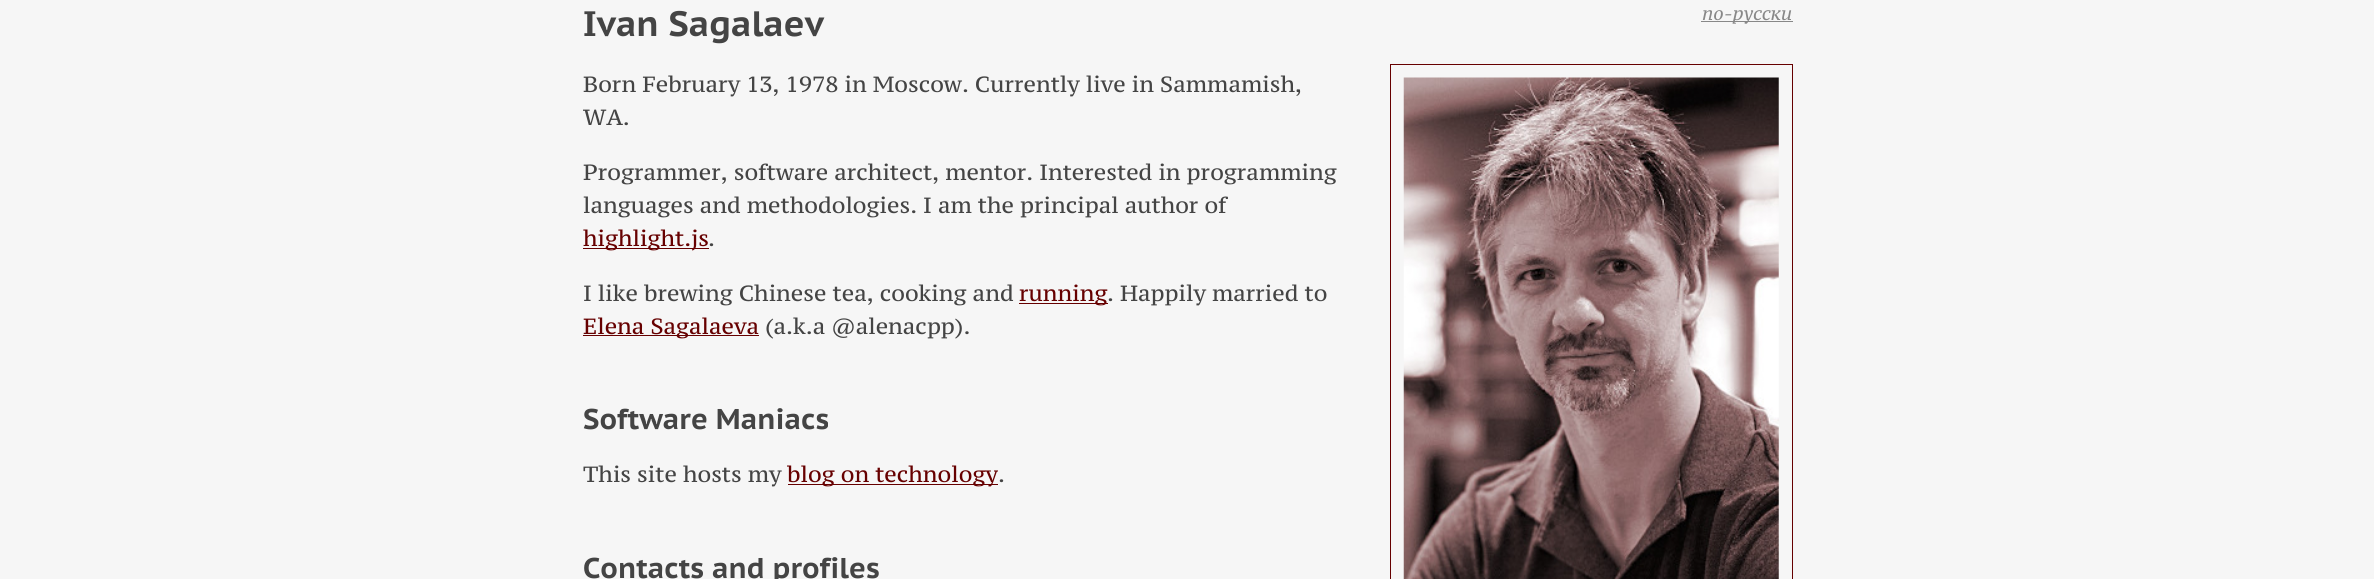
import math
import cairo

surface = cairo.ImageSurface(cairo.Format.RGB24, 2374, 579)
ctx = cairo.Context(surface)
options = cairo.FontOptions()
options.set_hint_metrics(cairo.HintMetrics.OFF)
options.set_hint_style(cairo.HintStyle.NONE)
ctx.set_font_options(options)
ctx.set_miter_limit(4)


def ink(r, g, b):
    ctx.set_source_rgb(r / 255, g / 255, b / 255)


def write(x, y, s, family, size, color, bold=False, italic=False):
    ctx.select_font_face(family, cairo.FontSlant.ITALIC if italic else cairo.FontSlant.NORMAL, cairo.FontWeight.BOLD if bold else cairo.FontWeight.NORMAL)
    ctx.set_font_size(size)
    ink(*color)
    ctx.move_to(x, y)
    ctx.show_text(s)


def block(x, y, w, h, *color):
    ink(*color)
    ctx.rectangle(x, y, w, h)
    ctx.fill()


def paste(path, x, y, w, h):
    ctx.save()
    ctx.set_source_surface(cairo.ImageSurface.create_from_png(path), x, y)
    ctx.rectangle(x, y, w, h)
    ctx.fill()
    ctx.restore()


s1 = dict(family="PT Sans Caption", size=35.25, color=(68, 68, 68), bold=True)
s2 = dict(family="PT Serif Caption", size=18.5, color=(136, 136, 136), italic=True)
s3 = dict(family="PT Serif Caption", size=22, color=(68, 68, 68))
s4 = dict(family="PT Serif Caption", size=22, color=(102, 0, 0))
s5 = dict(family="PT Sans Caption", size=28.6, color=(68, 68, 68), bold=True)

ink(246, 246, 246)
ctx.paint()
write(583, 36, "Ivan Sagalaev", **s1)
block(1701, 21, 92, 1, 136, 136, 136)
write(1702, 20, "по-русски", **s2)
write(583, 92, "Born February 13, 1978 in Moscow. Currently live in Sammamish,", **s3)
write(583, 125, "WA.", **s3)
ctx.rectangle(1390.5, 64.5, 402, 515)
ink(102, 0, 0)
ctx.set_line_width(1)
ctx.stroke()
paste("pic1.png", 1403, 77, 376, 502)
write(583, 180, "Programmer, software architect, mentor. Interested in programming", **s3)
write(583, 213, "languages and methodologies. I am the principal author of", **s3)
block(583, 248, 126, 1, 102, 0, 0)
write(583, 246, "highlight.js", **s4)
write(708, 246, ".", **s3)
write(583, 301, "I like brewing Chinese tea, cooking and", **s3)
block(1019, 303, 89, 1, 102, 0, 0)
write(1019, 301, "running", **s4)
write(1107, 301, ". Happily married to", **s3)
block(583, 335, 176, 1, 102, 0, 0)
write(583, 334, "Elena Sagalaeva", **s4)
write(765, 334, "(a.k.a @alenacpp).", **s3)
write(583, 429, "Software Maniacs", **s5)
write(583, 482, "This site hosts my", **s3)
block(788, 484, 210, 1, 102, 0, 0)
write(787, 482, "blog on technology", **s4)
write(998, 482, ".", **s3)
write(583, 578, "Contacts and profiles", **s5)
surface.write_to_png("screenshot.png")
